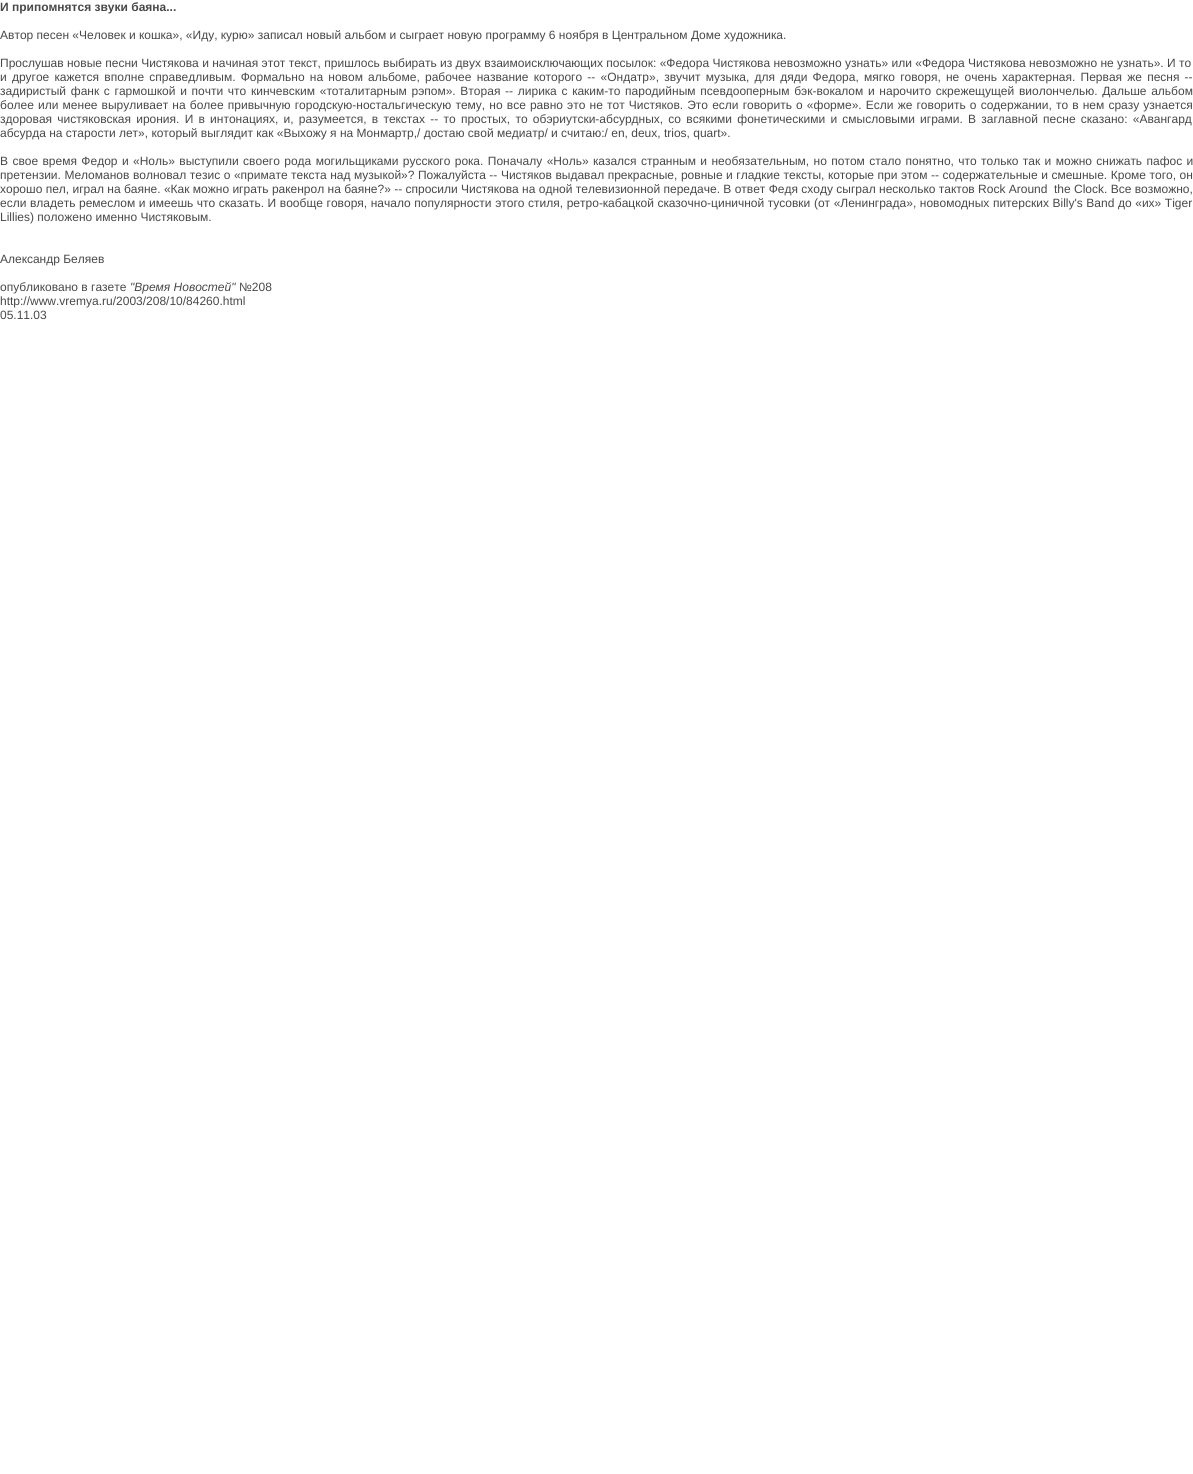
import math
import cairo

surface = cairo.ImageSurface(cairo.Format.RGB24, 1193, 1474)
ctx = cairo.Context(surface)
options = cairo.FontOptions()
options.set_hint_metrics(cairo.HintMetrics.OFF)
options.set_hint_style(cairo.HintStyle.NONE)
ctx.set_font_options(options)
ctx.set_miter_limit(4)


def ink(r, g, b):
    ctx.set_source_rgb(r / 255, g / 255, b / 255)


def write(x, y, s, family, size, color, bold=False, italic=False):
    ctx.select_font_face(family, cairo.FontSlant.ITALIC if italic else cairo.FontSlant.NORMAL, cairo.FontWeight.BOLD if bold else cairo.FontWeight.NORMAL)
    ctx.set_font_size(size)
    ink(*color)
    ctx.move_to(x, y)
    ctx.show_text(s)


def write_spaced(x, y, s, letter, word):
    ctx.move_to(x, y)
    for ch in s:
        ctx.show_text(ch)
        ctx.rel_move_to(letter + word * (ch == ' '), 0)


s1 = dict(family="Liberation Sans", size=12, color=(72, 72, 72), bold=True)
s2 = dict(family="Liberation Sans", size=12, color=(72, 72, 72))
s3 = dict(family="Liberation Sans", size=12, color=(72, 72, 72), italic=True)

ink(255, 255, 255)
ctx.paint()
write(0, 11, "И припомнятся звуки баяна...", **s1)
write(0, 39, "Автор песен «Человек и кошка», «Иду, курю» записал новый альбом и сыграет новую программу 6 ноября в Центральном Доме художника.", **s2)
write(0, 67, "Прослушав новые песни Чистякова и начиная этот текст, пришлось выбирать из двух взаимоисключающих посылок: «Федора Чистякова невозможно узнать» или «Федора Чистякова невозможно не узнать». И то", **s2)
write_spaced(0, 81, "и другое кажется вполне справедливым. Формально на новом альбоме, рабочее название которого -- «Ондатр», звучит музыка, для дяди Федора, мягко говоря, не очень характерная. Первая же песня --", 0, 1.85)
write_spaced(0, 95, "задиристый фанк с гармошкой и почти что кинчевским «тоталитарным рэпом». Вторая -- лирика с каким-то пародийным псевдооперным бэк-вокалом и нарочито скрежещущей виолончелью. Дальше альбом", 0, 1.35)
write_spaced(0, 109, "более или менее выруливает на более привычную городскую-ностальгическую тему, но все равно это не тот Чистяков. Это если говорить о «форме». Если же говорить о содержании, то в нем сразу узнается", 0, 0.8)
write_spaced(0, 123, "здоровая чистяковская ирония. И в интонациях, и, разумеется, в текстах -- то простых, то обэриутски-абсурдных, со всякими фонетическими и смысловыми играми. В заглавной песне сказано: «Авангард", 0, 1.9)
write(0, 137, "абсурда на старости лет», который выглядит как «Выхожу я на Монмартр,/ достаю свой медиатр/ и считаю:/ en, deux, trios, quart».", **s2)
write_spaced(0, 165, "В свое время Федор и «Ноль» выступили своего рода могильщиками русского рока. Поначалу «Ноль» казался странным и необязательным, но потом стало понятно, что только так и можно снижать пафос и", 0, 1.05)
write_spaced(0, 179, "претензии. Меломанов волновал тезис о «примате текста над музыкой»? Пожалуйста -- Чистяков выдавал прекрасные, ровные и гладкие тексты, которые при этом -- содержательные и смешные. Кроме того, он", 0, 0.2)
write(0, 193, "хорошо пел, играл на баяне. «Как можно играть ракенрол на баяне?» -- спросили Чистякова на одной телевизионной передаче. В ответ Федя сходу сыграл несколько тактов Rock Around", **s2)
write(1054, 193, "the Clock. Все возможно,", **s2)
write_spaced(0, 207, "если владеть ремеслом и имеешь что сказать. И вообще говоря, начало популярности этого стиля, ретро-кабацкой сказочно-циничной тусовки (от «Ленинграда», новомодных питерских Billy's Band до «их» Tiger", 0, 0.25)
write(0, 221, "Lillies) положено именно Чистяковым.", **s2)
write(0, 263, "Александр Беляев", **s2)
write(0, 291, "опубликовано в газете", **s2)
write(130, 291, "\"Время Новостей\"", **s3)
write(239, 291, "№208", **s2)
write(0, 305, "http://www.vremya.ru/2003/208/10/84260.html", **s2)
write(0, 319, "05.11.03", **s2)
surface.write_to_png("screenshot.png")
